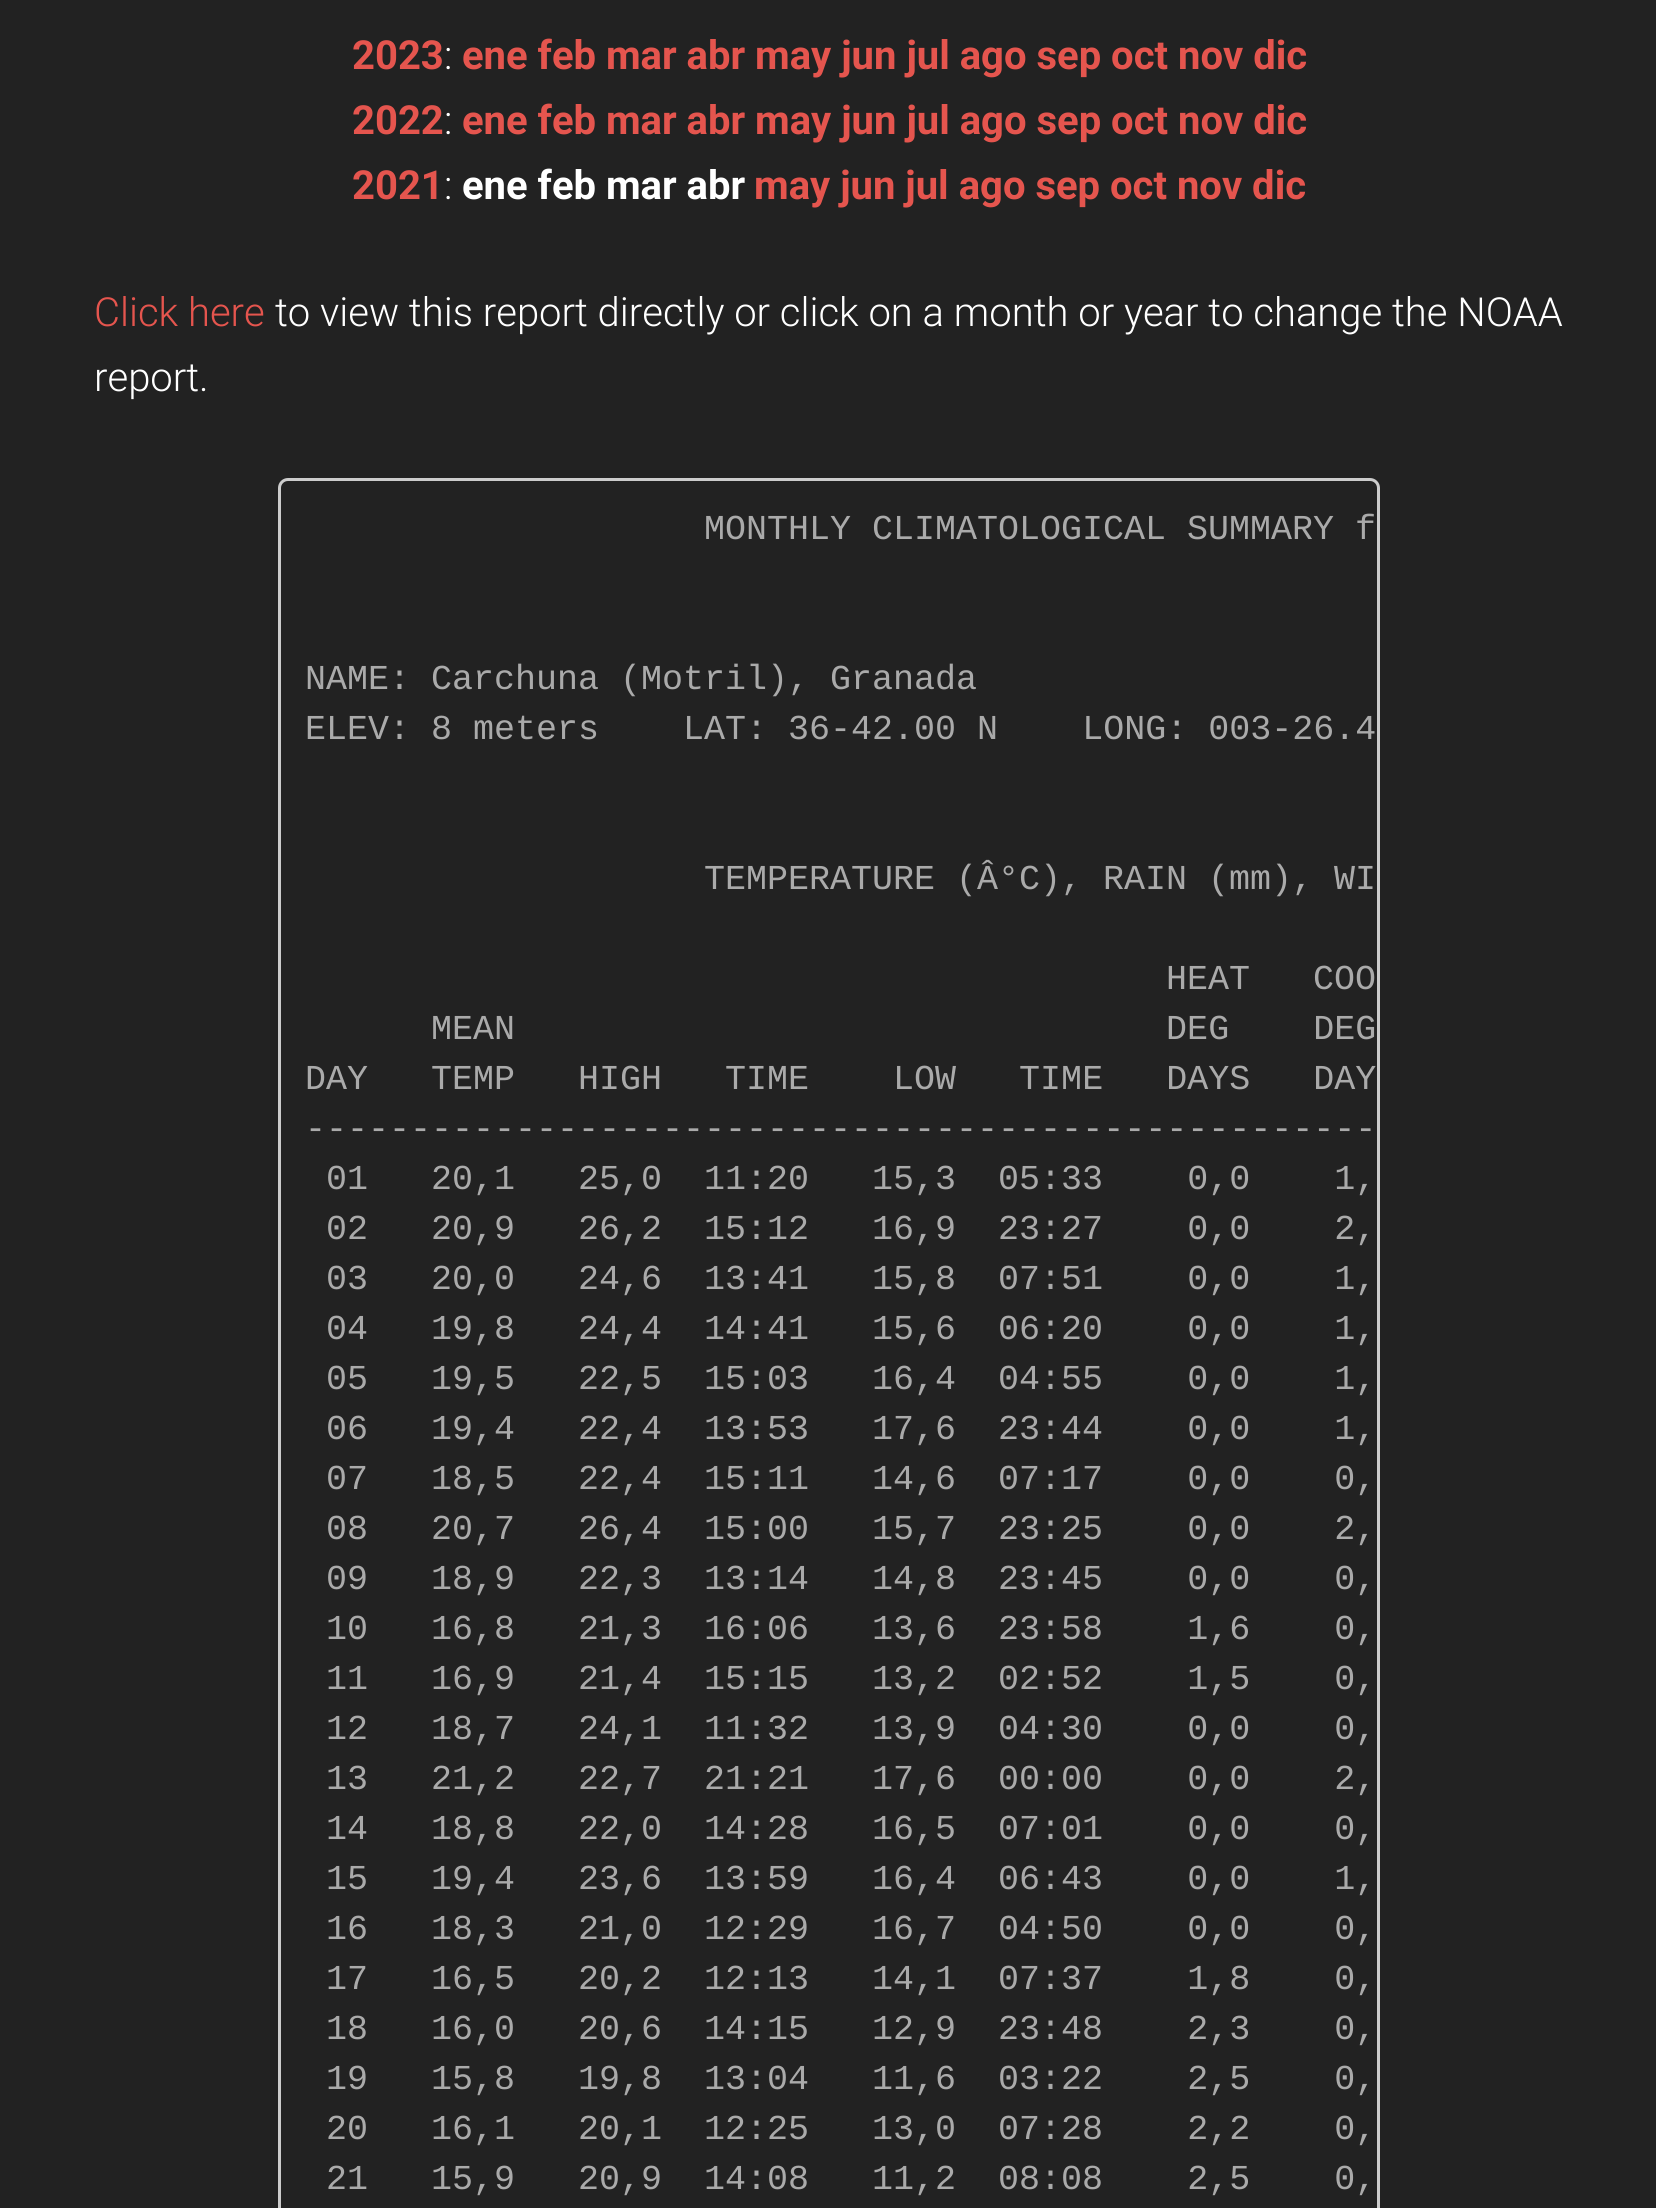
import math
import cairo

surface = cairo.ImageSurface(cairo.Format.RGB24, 1656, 2208)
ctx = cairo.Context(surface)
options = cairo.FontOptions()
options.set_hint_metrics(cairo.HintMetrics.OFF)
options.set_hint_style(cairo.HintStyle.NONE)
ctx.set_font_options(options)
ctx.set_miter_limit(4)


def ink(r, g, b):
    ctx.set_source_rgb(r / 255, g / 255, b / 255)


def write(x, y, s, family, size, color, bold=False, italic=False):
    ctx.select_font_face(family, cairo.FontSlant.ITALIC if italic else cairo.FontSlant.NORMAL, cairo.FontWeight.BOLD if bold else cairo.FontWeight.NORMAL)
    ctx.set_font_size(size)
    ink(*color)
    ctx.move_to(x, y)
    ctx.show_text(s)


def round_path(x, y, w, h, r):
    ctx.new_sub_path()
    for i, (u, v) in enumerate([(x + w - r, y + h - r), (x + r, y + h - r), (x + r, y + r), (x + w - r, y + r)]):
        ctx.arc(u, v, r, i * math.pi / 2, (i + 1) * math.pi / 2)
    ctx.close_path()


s1 = dict(family="Roboto", size=40, color=(229, 85, 78), bold=True)
s2 = dict(family="Roboto Light", size=40, color=(255, 255, 255))
s3 = dict(family="Roboto", size=40, color=(255, 255, 255), bold=True)
s4 = dict(family="Roboto Light", size=40, color=(229, 85, 78))
s5 = dict(family="Liberation Mono", size=35, color=(170, 170, 170))

ink(34, 34, 34)
ctx.paint()
write(352, 69, "2023", **s1)
write(444, 69, ":", **s2)
write(462, 69, "ene feb mar abr may jun jul ago sep oct nov dic", **s1)
write(352, 134, "2022", **s1)
write(444, 134, ":", **s2)
write(462, 134, "ene feb mar abr may jun jul ago sep oct nov dic", **s1)
write(352, 199, "2021", **s1)
write(444, 199, ":", **s2)
write(462, 199, "ene feb mar abr", **s3)
write(754, 199, "may jun jul ago sep oct nov dic", **s1)
write(94, 326, "Click here", **s4)
write(275, 326, "to view this report directly or click on a month or year to change the NOAA", **s2)
write(94, 391, "report.", **s2)
round_path(279.5, 479.5, 1099, 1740, 8.5)
ink(204, 204, 204)
ctx.set_line_width(3)
ctx.stroke()
write(704, 539, "MONTHLY CLIMATOLOGICAL SUMMARY f", **s5)
write(305, 689, "NAME: Carchuna (Motril), Granada", **s5)
write(305, 739, "ELEV: 8 meters    LAT: 36-42.00 N    LONG: 003-26.4", **s5)
write(704, 889, "TEMPERATURE (Â°C), RAIN (mm), WI", **s5)
write(1166, 989, "HEAT   COO", **s5)
write(431, 1039, "MEAN                               DEG    DEG", **s5)
write(305, 1089, "DAY   TEMP   HIGH   TIME    LOW   TIME   DAYS   DAY", **s5)
write(305, 1139, "---------------------------------------------------", **s5)
write(326, 1189, "01   20,1   25,0  11:20   15,3  05:33    0,0    1,", **s5)
write(326, 1239, "02   20,9   26,2  15:12   16,9  23:27    0,0    2,", **s5)
write(326, 1289, "03   20,0   24,6  13:41   15,8  07:51    0,0    1,", **s5)
write(326, 1339, "04   19,8   24,4  14:41   15,6  06:20    0,0    1,", **s5)
write(326, 1389, "05   19,5   22,5  15:03   16,4  04:55    0,0    1,", **s5)
write(326, 1439, "06   19,4   22,4  13:53   17,6  23:44    0,0    1,", **s5)
write(326, 1489, "07   18,5   22,4  15:11   14,6  07:17    0,0    0,", **s5)
write(326, 1539, "08   20,7   26,4  15:00   15,7  23:25    0,0    2,", **s5)
write(326, 1589, "09   18,9   22,3  13:14   14,8  23:45    0,0    0,", **s5)
write(326, 1639, "10   16,8   21,3  16:06   13,6  23:58    1,6    0,", **s5)
write(326, 1689, "11   16,9   21,4  15:15   13,2  02:52    1,5    0,", **s5)
write(326, 1739, "12   18,7   24,1  11:32   13,9  04:30    0,0    0,", **s5)
write(326, 1789, "13   21,2   22,7  21:21   17,6  00:00    0,0    2,", **s5)
write(326, 1839, "14   18,8   22,0  14:28   16,5  07:01    0,0    0,", **s5)
write(326, 1889, "15   19,4   23,6  13:59   16,4  06:43    0,0    1,", **s5)
write(326, 1939, "16   18,3   21,0  12:29   16,7  04:50    0,0    0,", **s5)
write(326, 1989, "17   16,5   20,2  12:13   14,1  07:37    1,8    0,", **s5)
write(326, 2039, "18   16,0   20,6  14:15   12,9  23:48    2,3    0,", **s5)
write(326, 2089, "19   15,8   19,8  13:04   11,6  03:22    2,5    0,", **s5)
write(326, 2139, "20   16,1   20,1  12:25   13,0  07:28    2,2    0,", **s5)
write(326, 2189, "21   15,9   20,9  14:08   11,2  08:08    2,5    0,", **s5)
surface.write_to_png("screenshot.png")
